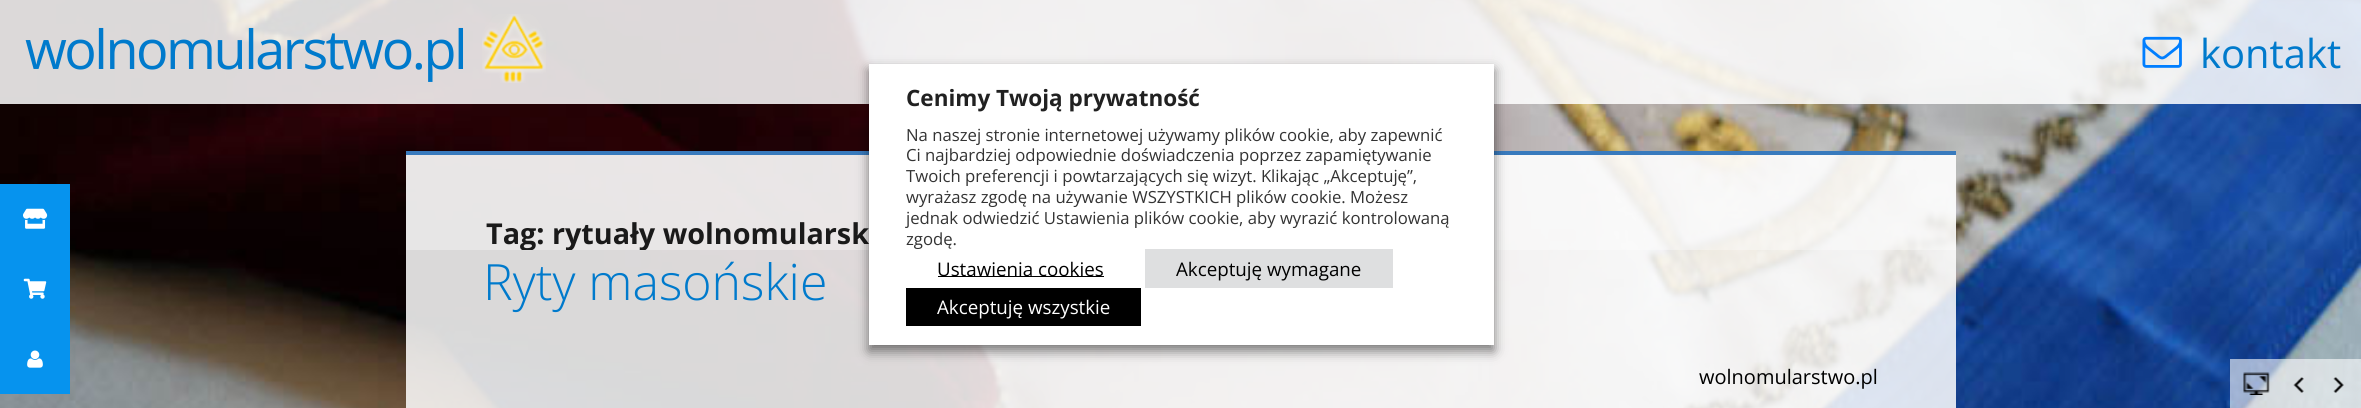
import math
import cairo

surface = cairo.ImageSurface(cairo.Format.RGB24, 2361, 408)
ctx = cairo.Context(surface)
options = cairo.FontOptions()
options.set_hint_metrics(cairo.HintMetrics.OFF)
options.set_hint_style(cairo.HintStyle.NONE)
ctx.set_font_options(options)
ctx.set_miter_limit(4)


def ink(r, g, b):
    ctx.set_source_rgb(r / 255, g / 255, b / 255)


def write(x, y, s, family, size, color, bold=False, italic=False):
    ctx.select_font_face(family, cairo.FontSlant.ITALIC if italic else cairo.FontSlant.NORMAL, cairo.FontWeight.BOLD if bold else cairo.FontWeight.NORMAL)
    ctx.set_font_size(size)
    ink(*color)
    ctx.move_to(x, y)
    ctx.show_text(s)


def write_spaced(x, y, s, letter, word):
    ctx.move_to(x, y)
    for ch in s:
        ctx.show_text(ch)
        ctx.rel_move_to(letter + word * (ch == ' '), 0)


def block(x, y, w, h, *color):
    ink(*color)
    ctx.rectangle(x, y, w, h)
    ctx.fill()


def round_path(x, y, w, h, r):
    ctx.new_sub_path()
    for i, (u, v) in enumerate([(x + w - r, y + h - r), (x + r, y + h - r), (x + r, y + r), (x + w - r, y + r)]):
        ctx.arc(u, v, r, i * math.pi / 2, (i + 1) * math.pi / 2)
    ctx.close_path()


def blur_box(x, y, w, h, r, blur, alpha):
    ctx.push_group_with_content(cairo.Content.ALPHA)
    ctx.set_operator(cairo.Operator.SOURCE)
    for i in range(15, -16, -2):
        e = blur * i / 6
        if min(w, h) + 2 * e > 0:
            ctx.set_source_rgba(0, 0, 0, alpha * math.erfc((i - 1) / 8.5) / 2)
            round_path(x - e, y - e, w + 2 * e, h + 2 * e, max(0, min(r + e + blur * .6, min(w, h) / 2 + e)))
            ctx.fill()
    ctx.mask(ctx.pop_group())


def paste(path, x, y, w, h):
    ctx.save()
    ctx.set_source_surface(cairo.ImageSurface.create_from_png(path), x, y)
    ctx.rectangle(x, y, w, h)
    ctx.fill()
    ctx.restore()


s1 = dict(family="Open Sans", size=40, color=(0, 122, 204))
s2 = dict(family="Open Sans", size=28.75, color=(26, 26, 26), bold=True)
s3 = dict(family="Open Sans", size=22.5, color=(33, 33, 33), bold=True)
s4 = dict(family="Open Sans", size=16.7, color=(51, 51, 51))
s5 = dict(family="Open Sans", size=18.75, color=(0, 0, 0))
s6 = dict(family="Open Sans", size=18.75, color=(255, 255, 255))
s7 = dict(family="Open Sans Light", size=50, color=(0, 122, 204))
s8 = dict(family="Open Sans", size=20, color=(0, 0, 0))

ink(255, 255, 255)
ctx.paint()
paste("pic1.png", 0, 0, 2361, 408)
ctx.set_source_rgba(1, 1, 1, 0.85)
ctx.rectangle(0, 0, 2361, 104)
ctx.fill()
ctx.select_font_face("Open Sans")
ctx.set_font_size(54)
ink(0, 122, 204)
write_spaced(25, 69, "wolnomularstwo.pl", -2.5, 0)
paste("pic2.png", 482, 14, 64, 69)
paste("pic3.png", 2142, 36, 40, 32)
write(2200, 68, "kontakt", **s1)
block(0, 184, 70, 210, 6, 147, 238)
paste("pic4.png", 23, 208, 25, 21)
paste("pic5.png", 23, 278, 24, 21)
paste("pic6.png", 27, 350, 16, 18)
block(406, 151, 1550, 4, 56, 122, 189)
ctx.set_source_rgba(1, 1, 1, 0.9)
ctx.rectangle(406, 155, 1550, 95)
ctx.fill()
write(486, 244, "Tag: rytuały wolnomularsk", **s2)
ctx.set_source_rgba(1, 1, 1, 0.85)
ctx.rectangle(406, 250, 1550, 158)
ctx.fill()
ink(0, 0, 0)
blur_box(869, 70, 625, 281, 0, 6, 0.5)
block(869, 64, 625, 281, 255, 255, 255)
write(906, 106, "Cenimy Twoją prywatność", **s3)
write(906, 141, "Na naszej stronie internetowej używamy plików cookie, aby zapewnić", **s4)
write(906, 161, "Ci najbardziej odpowiednie doświadczenia poprzez zapamiętywanie", **s4)
write(906, 182, "Twoich preferencji i powtarzających się wizyt. Klikając „Akceptuję”,", **s4)
write(906, 203, "wyrażasz zgodę na używanie WSZYSTKICH plików cookie. Możesz", **s4)
write(906, 224, "jednak odwiedzić Ustawienia plików cookie, aby wyrazić kontrolowaną", **s4)
write(906, 245, "zgodę.", **s4)
block(938, 276, 166, 1, 0, 0, 0)
write(937, 276, "Ustawienia cookies", **s5)
block(1145, 249, 248, 39, 222, 223, 224)
write(1176, 276, "Akceptuję wymagane", **s5)
block(906, 288, 235, 38, 0, 0, 0)
write(937, 314, "Akceptuję wszystkie", **s6)
write(483, 300, "Ryty masońskie", **s7)
write(1699, 384, "wolnomularstwo.pl", **s8)
ctx.set_source_rgba(1, 1, 1, 0.6)
ctx.rectangle(2230, 359, 131, 49)
ctx.fill()
paste("pic7.png", 2243, 372, 27, 23)
paste("pic8.png", 2293, 377, 11, 16)
paste("pic9.png", 2333, 377, 11, 16)
surface.write_to_png("screenshot.png")
